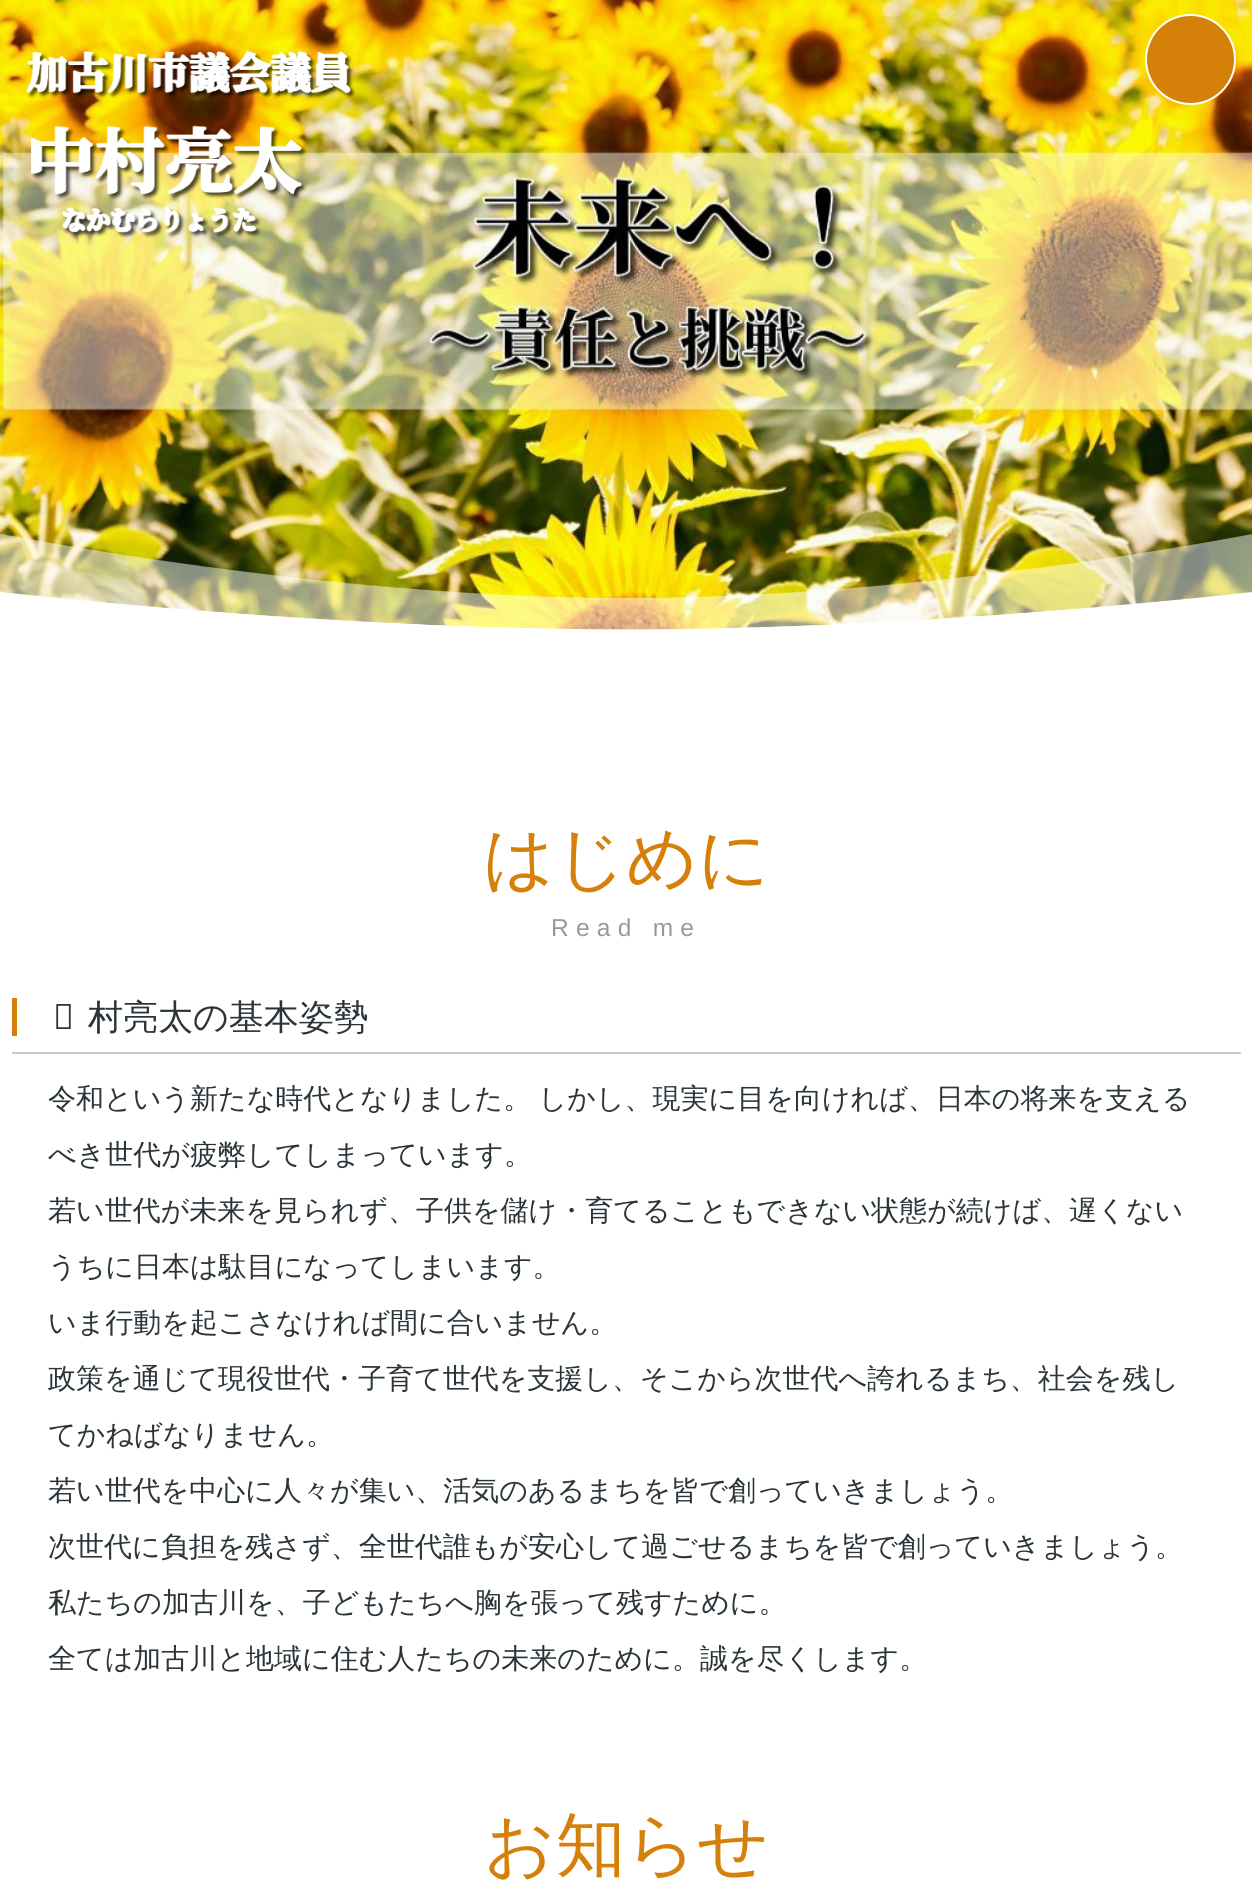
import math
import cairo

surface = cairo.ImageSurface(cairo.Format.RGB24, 1252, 1889)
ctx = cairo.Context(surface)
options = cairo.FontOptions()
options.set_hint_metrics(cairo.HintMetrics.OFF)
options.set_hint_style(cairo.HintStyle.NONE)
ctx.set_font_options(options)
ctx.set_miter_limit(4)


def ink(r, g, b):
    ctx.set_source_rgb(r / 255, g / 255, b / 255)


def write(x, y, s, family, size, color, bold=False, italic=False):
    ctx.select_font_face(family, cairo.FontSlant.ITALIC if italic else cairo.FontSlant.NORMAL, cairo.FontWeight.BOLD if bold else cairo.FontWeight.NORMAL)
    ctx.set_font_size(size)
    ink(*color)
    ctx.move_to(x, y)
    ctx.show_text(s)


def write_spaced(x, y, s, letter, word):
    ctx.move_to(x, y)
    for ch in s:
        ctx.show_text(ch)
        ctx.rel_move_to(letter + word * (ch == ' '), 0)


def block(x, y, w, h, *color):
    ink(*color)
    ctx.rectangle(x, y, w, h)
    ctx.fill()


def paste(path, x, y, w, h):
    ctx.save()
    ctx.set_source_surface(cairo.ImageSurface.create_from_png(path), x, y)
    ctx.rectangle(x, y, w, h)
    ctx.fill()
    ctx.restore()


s1 = dict(family="WenQuanYi Zen Hei Medium", size=70, color=(213, 128, 8))
s2 = dict(family="Noto Sans", size=35, color=(42, 52, 57))
s3 = dict(family="WenQuanYi Zen Hei Medium", size=35, color=(42, 52, 57))
s4 = dict(family="WenQuanYi Zen Hei Medium", size=28, color=(42, 52, 57))

ink(255, 255, 255)
ctx.paint()
paste("pic1.png", 0, 0, 1252, 630)
ink(213, 128, 8)
ctx.arc(1190.5, 59.5, 44.5, 0, 2 * math.pi)
ctx.fill_preserve()
ink(255, 255, 255)
ctx.stroke()
paste("pic2.png", 26, 51, 330, 187)
paste("pic3.png", 0, 533, 1252, 132)
write(483, 882, "はじめに", **s1)
ctx.select_font_face("Liberation Sans")
ctx.set_font_size(24.5)
ink(153, 153, 153)
write_spaced(551, 936, "Read me", 7.25, 0)
block(12, 1052, 1229, 2, 204, 204, 204)
write(53, 1029, "中", **s2)
block(12, 998, 5, 38, 213, 128, 8)
write(88, 1029, "村亮太の基本姿勢", **s3)
ctx.set_font_size(28)
write_spaced(48, 1108, "令和という新たな時代となりました。 しかし、現実に目を向ければ、日本の将来を支える", 0, -1)
write(48, 1164, "べき世代が疲弊してしまっています。", **s4)
write(48, 1220, "若い世代が未来を見られず、子供を儲け・育てることもできない状態が続けば、遅くない", **s4)
write(48, 1276, "うちに日本は駄目になってしまいます。", **s4)
write(48, 1332, "いま行動を起こさなければ間に合いません。", **s4)
write(48, 1388, "政策を通じて現役世代・子育て世代を支援し、そこから次世代へ誇れるまち、社会を残し", **s4)
write(48, 1444, "てかねばなりません。", **s4)
write(48, 1500, "若い世代を中心に人々が集い、活気のあるまちを皆で創っていきましょう。", **s4)
write(48, 1556, "次世代に負担を残さず、全世代誰もが安心して過ごせるまちを皆で創っていきましょう。", **s4)
write(48, 1612, "私たちの加古川を、子どもたちへ胸を張って残すために。", **s4)
write(48, 1668, "全ては加古川と地域に住む人たちの未来のために。誠を尽くします。", **s4)
write(484, 1869, "お知らせ", **s1)
surface.write_to_png("screenshot.png")
